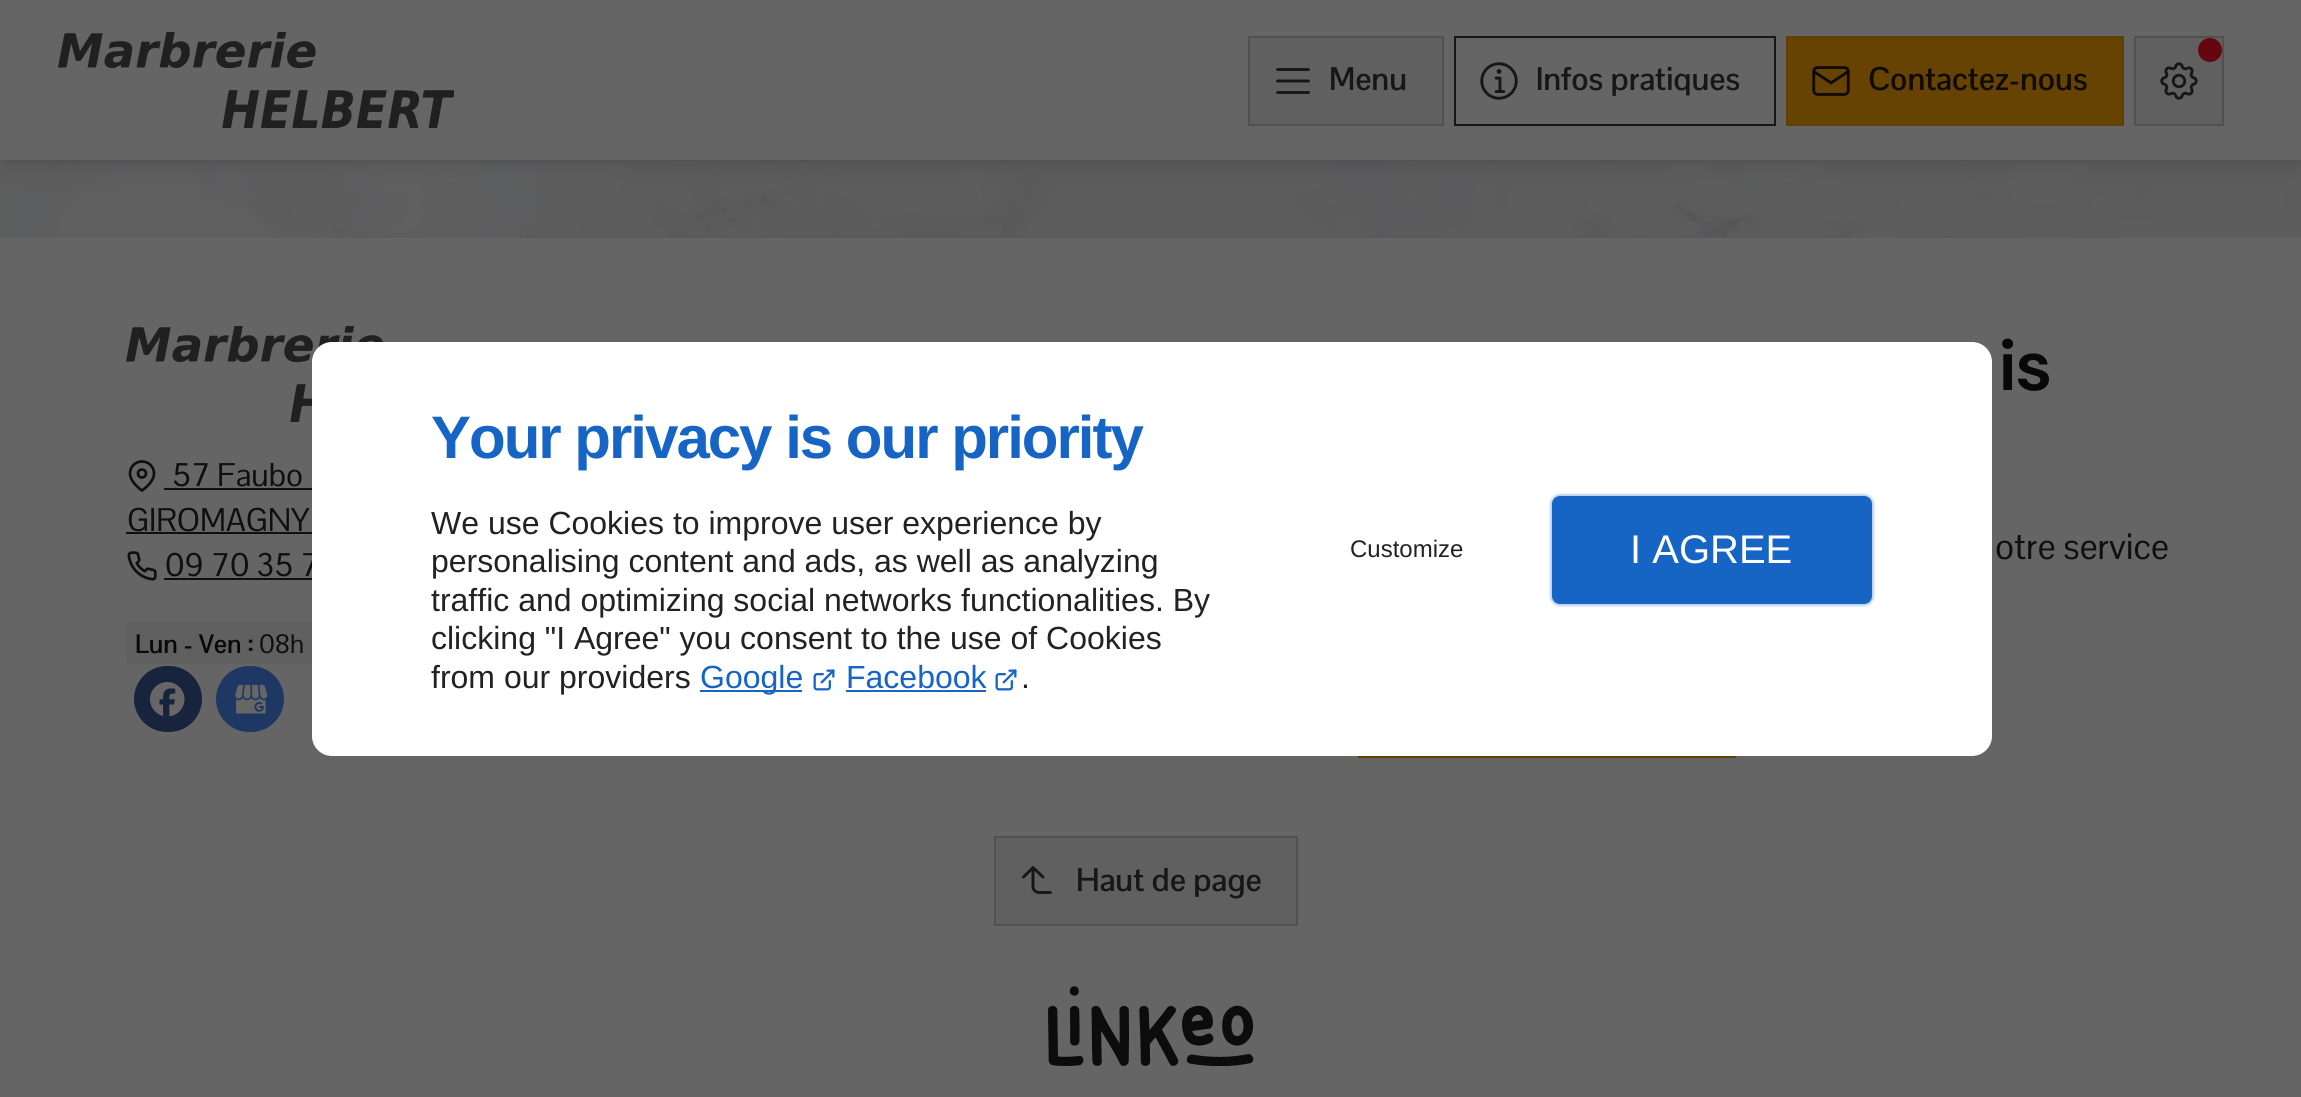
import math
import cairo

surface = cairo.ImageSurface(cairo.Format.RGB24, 2301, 1097)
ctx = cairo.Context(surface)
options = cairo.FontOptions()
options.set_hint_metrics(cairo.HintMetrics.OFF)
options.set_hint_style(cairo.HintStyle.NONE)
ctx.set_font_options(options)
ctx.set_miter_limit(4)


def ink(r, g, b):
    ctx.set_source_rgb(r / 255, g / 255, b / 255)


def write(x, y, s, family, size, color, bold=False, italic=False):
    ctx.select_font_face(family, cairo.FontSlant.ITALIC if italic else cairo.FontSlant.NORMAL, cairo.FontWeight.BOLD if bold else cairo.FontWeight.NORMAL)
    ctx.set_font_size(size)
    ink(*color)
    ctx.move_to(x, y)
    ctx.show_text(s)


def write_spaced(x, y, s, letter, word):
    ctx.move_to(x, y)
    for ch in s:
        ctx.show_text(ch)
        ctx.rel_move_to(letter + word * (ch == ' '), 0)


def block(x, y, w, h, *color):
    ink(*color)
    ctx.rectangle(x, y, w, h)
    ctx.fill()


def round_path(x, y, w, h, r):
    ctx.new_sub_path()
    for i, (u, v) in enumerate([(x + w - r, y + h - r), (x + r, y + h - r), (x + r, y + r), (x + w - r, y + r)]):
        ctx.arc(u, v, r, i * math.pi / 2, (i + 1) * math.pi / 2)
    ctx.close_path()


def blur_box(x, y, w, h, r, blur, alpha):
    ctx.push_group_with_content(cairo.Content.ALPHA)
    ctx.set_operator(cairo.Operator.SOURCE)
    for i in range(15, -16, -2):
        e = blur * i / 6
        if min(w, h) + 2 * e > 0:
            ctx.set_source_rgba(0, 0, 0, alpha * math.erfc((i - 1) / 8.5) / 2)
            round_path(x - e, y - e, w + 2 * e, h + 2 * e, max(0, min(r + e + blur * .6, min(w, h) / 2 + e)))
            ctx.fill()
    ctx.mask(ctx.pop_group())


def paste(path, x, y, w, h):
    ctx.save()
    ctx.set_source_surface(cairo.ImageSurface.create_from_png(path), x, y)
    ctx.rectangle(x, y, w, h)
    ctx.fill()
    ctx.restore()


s1 = dict(family="Pontano Sans", size=32, color=(23, 23, 23), bold=True)
s2 = dict(family="Pontano Sans", size=32, color=(16, 11, 4), bold=True)
s3 = dict(family="Pontano Sans", size=32, color=(15, 15, 15))
s4 = dict(family="Pontano Sans", size=26, color=(8, 8, 8), bold=True)
s5 = dict(family="Pontano Sans", size=26, color=(15, 15, 15))
s6 = dict(family="DM Sans SemiBold", size=72, color=(8, 8, 8))
s7 = dict(family="Pontano Sans", size=36, color=(15, 15, 15))
s8 = dict(family="Liberation Sans", size=32, color=(34, 34, 34))
s9 = dict(family="Liberation Sans", size=32, color=(22, 101, 196))
s10 = dict(family="Liberation Sans", size=24, color=(34, 34, 34))
s11 = dict(family="Liberation Sans", size=40, color=(255, 255, 255))

ink(101, 101, 101)
ctx.paint()
paste("pic5.png", 0, 160, 2301, 78)
ink(0, 0, 0)
blur_box(4, 8, 2294, 152, 0, 10, 0.2)
block(0, 0, 2301, 160, 101, 101, 101)
paste("pic1.png", 58, 32, 396, 96)
ink(96, 96, 96)
ctx.rectangle(1249, 37, 194, 88)
ctx.fill_preserve()
ink(81, 81, 81)
ctx.stroke()
ctx.new_path()
ctx.move_to(1277.5, 69.5)
ctx.line_to(1308.5, 69.5)
ctx.move_to(1277.5, 81)
ctx.line_to(1308.5, 81)
ctx.move_to(1277.5, 92.5)
ctx.line_to(1308.5, 92.5)
ink(23, 23, 23)
ctx.set_line_width(2.9)
ctx.set_line_cap(cairo.LineCap.ROUND)
ctx.set_line_join(cairo.LineJoin.ROUND)
ctx.stroke()
write(1329, 90, "Menu", **s1)
ctx.rectangle(1455, 37, 320, 88)
ctx.set_line_width(2)
ctx.set_line_cap(cairo.LineCap.BUTT)
ctx.set_line_join(cairo.LineJoin.MITER)
ctx.stroke()
paste("pic2.png", 1480, 62, 38, 38)
write(1536, 90, "Infos pratiques", **s1)
ink(102, 67, 3)
ctx.rectangle(1787, 37, 336, 88)
ctx.fill_preserve()
ink(96, 63, 2)
ctx.stroke()
paste("pic3.png", 1812, 66, 38, 30)
write(1868, 90, "Contactez-nous", **s2)
ink(96, 96, 96)
ctx.rectangle(2135, 37, 88, 88)
ctx.fill_preserve()
ink(81, 81, 81)
ctx.stroke()
ink(102, 7, 15)
ctx.arc(2210, 50, 12, 0, 2 * math.pi)
ctx.fill()
paste("pic4.png", 2160, 62, 38, 38)
paste("pic6.png", 126, 326, 257, 96)
ctx.new_path()
ctx.move_to(154, 473.5)
ctx.curve_to(154, 482.5, 142, 490.5, 142, 490.5)
ctx.curve_to(142, 490.5, 130, 482.5, 130, 473.5)
ctx.curve_to(130, 466.5, 135.5, 461.5, 142, 461.5)
ctx.curve_to(148.5, 461.5, 154, 466.5, 154, 473.5)
ctx.close_path()
ink(15, 15, 15)
ctx.set_line_width(2.7)
ctx.set_line_cap(cairo.LineCap.ROUND)
ctx.set_line_join(cairo.LineJoin.ROUND)
ctx.stroke()
ctx.arc(142, 473.5, 4, 0, 2 * math.pi)
ctx.set_line_cap(cairo.LineCap.BUTT)
ctx.set_line_join(cairo.LineJoin.MITER)
ctx.stroke()
write(172, 486, "57 Faubo", **s3)
block(164, 488, 148, 2, 15, 15, 15)
write(127, 531, "GIROMAGNY", **s3)
block(126, 532, 190, 2, 15, 15, 15)
paste("pic7.png", 127, 551, 30, 30)
write(165, 576, "09 70 35 7", **s3)
block(164, 578, 148, 2, 15, 15, 15)
ink(96, 96, 96)
ctx.new_path()
ctx.move_to(129, 622)
ctx.line_to(260, 622)
ctx.line_to(260, 664)
ctx.line_to(129, 664)
ctx.curve_to(127.5, 664, 126, 662.5, 126, 661)
ctx.line_to(126, 625)
ctx.curve_to(126, 623.5, 127.5, 622, 129, 622)
ctx.close_path()
ctx.fill()
write(135, 653, "Lun - Ven :", **s4)
block(260, 622, 52, 42, 96, 96, 96)
write(259, 653, "08h", **s5)
ink(24, 36, 61)
round_path(134, 666, 68, 66, 33)
ctx.fill()
paste("pic8.png", 150, 682, 35, 34)
ink(31, 56, 99)
round_path(216, 666, 68, 66, 33)
ctx.fill()
paste("pic9.png", 235, 684, 33, 30)
write(1999, 390, "is", **s6)
write(1995, 559, "otre service", **s7)
ctx.rectangle(1359, 659, 376, 98)
ink(96, 63, 2)
ctx.set_line_width(2)
ctx.stroke()
ink(96, 96, 96)
ctx.rectangle(995, 837, 302, 88)
ctx.fill_preserve()
ink(81, 81, 81)
ctx.stroke()
ctx.new_path()
ctx.move_to(1050.5, 892.5)
ctx.line_to(1039, 892.5)
ctx.curve_to(1036, 892.5, 1033, 890, 1033, 887)
ctx.line_to(1033, 867.5)
ctx.move_to(1033, 867.5)
ctx.line_to(1023.5, 877)
ctx.move_to(1033, 867.5)
ctx.line_to(1043, 877)
ink(23, 23, 23)
ctx.set_line_width(2.9)
ctx.set_line_cap(cairo.LineCap.ROUND)
ctx.set_line_join(cairo.LineJoin.ROUND)
ctx.stroke()
write(1076, 891, "Haut de page", **s1)
paste("pic10.png", 1048, 986, 206, 80)
ink(255, 255, 255)
round_path(312, 342, 1680, 414, 20)
ctx.fill()
ctx.select_font_face("Liberation Sans", cairo.FontSlant.NORMAL, cairo.FontWeight.BOLD)
ctx.set_font_size(60)
ink(22, 101, 196)
write_spaced(431, 458, "Your privacy is our priority", -2, 0)
write(431, 534, "We use Cookies to improve user experience by", **s8)
write(431, 572, "personalising content and ads, as well as analyzing", **s8)
write(431, 611, "traffic and optimizing social networks functionalities. By", **s8)
write(431, 649, "clicking \"I Agree\" you consent to the use of Cookies", **s8)
write(431, 688, "from our providers", **s8)
block(700, 690, 102, 2, 22, 101, 196)
write(700, 688, "Google", **s9)
paste("pic11.png", 813, 669, 22, 22)
write(846, 688, "Facebook", **s9)
block(846, 690, 140, 2, 22, 101, 196)
paste("pic11.png", 995, 669, 22, 22)
write(1021, 688, ".", **s8)
write(1350, 557, "Customize", **s10)
ink(22, 101, 196)
blur_box(1550, 494, 324, 112, 10, 1, 0.3)
ink(22, 101, 196)
round_path(1554, 498, 316, 104, 6)
ctx.fill_preserve()
ctx.set_line_width(4)
ctx.set_line_cap(cairo.LineCap.BUTT)
ctx.set_line_join(cairo.LineJoin.MITER)
ctx.stroke()
write(1630, 563, "I AGREE", **s11)
surface.write_to_png("screenshot.png")
